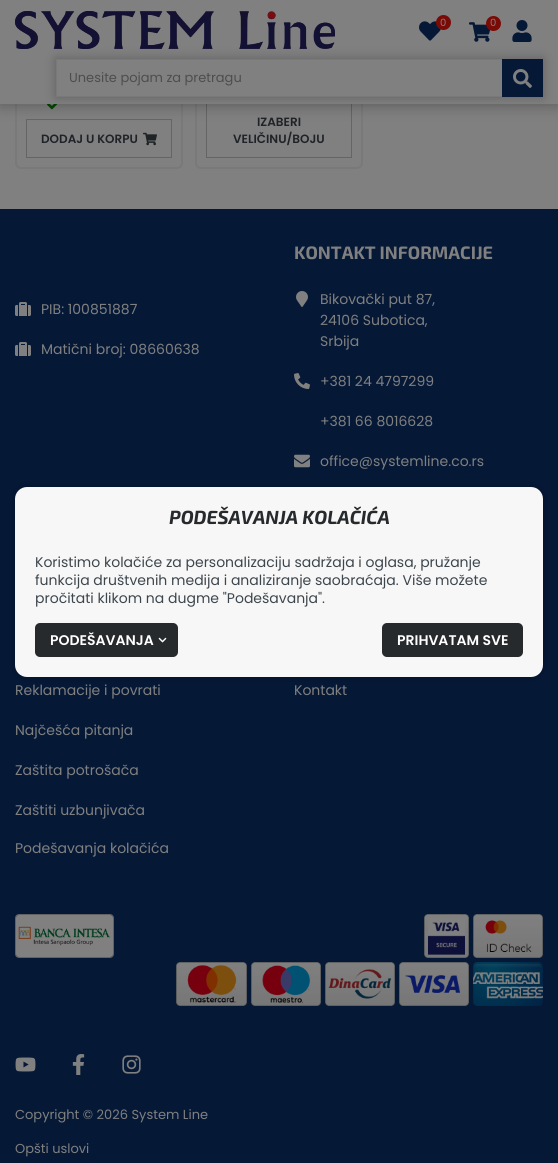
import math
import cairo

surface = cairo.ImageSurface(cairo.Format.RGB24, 558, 1163)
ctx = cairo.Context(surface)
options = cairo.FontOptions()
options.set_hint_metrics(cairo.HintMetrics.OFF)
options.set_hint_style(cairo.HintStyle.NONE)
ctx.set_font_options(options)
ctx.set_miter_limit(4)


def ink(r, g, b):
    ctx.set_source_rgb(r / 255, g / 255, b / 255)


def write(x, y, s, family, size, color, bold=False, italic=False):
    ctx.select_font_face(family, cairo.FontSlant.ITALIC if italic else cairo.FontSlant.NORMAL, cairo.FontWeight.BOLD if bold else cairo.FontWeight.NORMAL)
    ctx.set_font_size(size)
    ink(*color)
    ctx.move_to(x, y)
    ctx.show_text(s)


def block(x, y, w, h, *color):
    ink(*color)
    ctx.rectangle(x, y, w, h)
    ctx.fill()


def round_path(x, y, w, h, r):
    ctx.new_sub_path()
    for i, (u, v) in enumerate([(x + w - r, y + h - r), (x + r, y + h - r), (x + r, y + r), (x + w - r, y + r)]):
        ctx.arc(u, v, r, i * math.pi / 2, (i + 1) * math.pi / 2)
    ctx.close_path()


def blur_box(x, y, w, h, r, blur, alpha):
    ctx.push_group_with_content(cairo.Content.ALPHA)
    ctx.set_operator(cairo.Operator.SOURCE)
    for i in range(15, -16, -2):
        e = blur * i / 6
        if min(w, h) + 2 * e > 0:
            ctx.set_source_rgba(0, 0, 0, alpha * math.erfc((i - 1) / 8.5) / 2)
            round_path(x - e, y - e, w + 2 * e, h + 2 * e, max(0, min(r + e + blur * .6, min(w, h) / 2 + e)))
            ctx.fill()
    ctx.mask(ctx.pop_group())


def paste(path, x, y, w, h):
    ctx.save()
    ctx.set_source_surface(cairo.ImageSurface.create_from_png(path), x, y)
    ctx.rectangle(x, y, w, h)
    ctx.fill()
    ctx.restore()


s1 = dict(family="Poppins", size=10, color=(128, 128, 128))
s2 = dict(family="Poppins", size=13, color=(77, 77, 78))
s3 = dict(family="Poppins SemiBold", size=12, color=(31, 35, 39))
s4 = dict(family="Poppins", size=14, color=(128, 128, 128))
s5 = dict(family="Exo 2", size=18, color=(128, 128, 128), bold=True)
s6 = dict(family="Poppins", size=13, color=(128, 128, 128))
s7 = dict(family="Exo 2", size=19, color=(39, 42, 45), bold=True, italic=True)
s8 = dict(family="Poppins", size=14, color=(61, 70, 77))
s9 = dict(family="Poppins SemiBold", size=14, color=(255, 255, 255))

ink(128, 128, 128)
ctx.paint()
round_path(16, -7, 166, 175, 5)
ink(121, 121, 121)
ctx.stroke()
paste("pic6.png", 47, 104, 11, 6)
ctx.rectangle(26.5, 119.5, 145, 38)
ink(101, 101, 101)
ctx.set_line_width(1)
ctx.stroke()
round_path(196, -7, 166, 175, 5)
ink(121, 121, 121)
ctx.set_line_width(2)
ctx.stroke()
ctx.rectangle(206.5, 102.5, 145, 55)
ink(101, 101, 101)
ctx.set_line_width(1)
ctx.stroke()
ink(0, 0, 0)
blur_box(0, 1, 558, 104, 0, 7.5, 0.3)
block(0, 0, 558, 104, 128, 128, 128)
paste("pic1.png", 15, 11, 320, 38)
paste("pic2.png", 419, 21, 22, 20)
ink(121, 10, 6)
ctx.arc(443.5, 22.5, 7.5, 0, 2 * math.pi)
ctx.fill()
write(440, 26, "0", **s1)
paste("pic3.png", 469, 22, 21, 20)
ink(121, 10, 6)
ctx.arc(493.5, 23.5, 7.5, 0, 2 * math.pi)
ctx.fill()
write(490, 26, "0", **s1)
paste("pic4.png", 512, 20, 20, 22)
ctx.save()
ctx.set_fill_rule(cairo.FillRule.EVEN_ODD)
ctx.new_path()
ctx.move_to(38, 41)
ctx.line_to(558, 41)
ctx.line_to(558, 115)
ctx.line_to(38, 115)
ctx.close_path()
ctx.move_to(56, 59)
ctx.line_to(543, 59)
ctx.line_to(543, 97)
ctx.line_to(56, 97)
ctx.close_path()
ctx.clip()
ink(0, 0, 0)
blur_box(56, 59, 487, 38, 0, 5.5, 0.25)
ctx.restore()
ctx.rectangle(56.5, 59.5, 486, 37)
ink(121, 121, 121)
ctx.stroke()
write(69, 82, "Unesite pojam za pretragu", **s2)
block(502, 59, 41, 38, 5, 24, 54)
paste("pic5.png", 513, 69, 19, 19)
write(41, 143, "DODAJ U KORPU", **s3)
paste("pic7.png", 143, 132, 14, 14)
write(257, 126, "IZABERI", **s3)
write(233, 143, "VELIČINU/BOJU", **s3)
block(0, 209, 558, 954, 5, 24, 54)
paste("pic8.png", 15, 302, 16, 14)
write(41, 314, "PIB: 100851887", **s4)
paste("pic8.png", 15, 342, 16, 14)
write(41, 354, "Matični broj: 08660638", **s4)
write(294, 259, "KONTAKT INFORMACIJE", **s5)
paste("pic9.png", 296, 291, 12, 16)
write(320, 304, "Bikovački put 87,", **s4)
write(320, 325, "24106 Subotica,", **s4)
write(320, 346, "Srbija", **s4)
paste("pic10.png", 294, 373, 16, 16)
write(320, 386, "+381 24 4797299", **s4)
write(320, 426, "+381 66 8016628", **s4)
paste("pic11.png", 294, 454, 16, 14)
write(320, 466, "office@systemline.co.rs", **s4)
write(15, 695, "Reklamacije i povrati", **s4)
write(15, 735, "Najčešća pitanja", **s4)
write(15, 775, "Zaštita potrošača", **s4)
write(15, 815, "Zaštiti uzbunjivača", **s4)
write(15, 853, "Podešavanja kolačića", **s4)
write(294, 695, "Kontakt", **s4)
round_path(15.5, 914.5, 98, 43, 3.5)
ink(98, 98, 98)
ctx.stroke()
paste("pic12.png", 16, 915, 97, 42)
paste("pic13.png", 424, 914, 45, 44)
paste("pic14.png", 473, 914, 70, 44)
paste("pic15.png", 176, 962, 71, 44)
paste("pic16.png", 251, 962, 70, 44)
paste("pic17.png", 325, 962, 70, 44)
paste("pic18.png", 399, 962, 70, 44)
paste("pic19.png", 473, 962, 70, 44)
paste("pic20.png", 15, 1057, 21, 15)
paste("pic21.png", 72, 1054, 13, 21)
paste("pic22.png", 122, 1055, 19, 19)
write(15, 1119, "Copyright © 2026 System Line", **s6)
write(15, 1153, "Opšti uslovi", **s6)
ink(0, 0, 0)
blur_box(15, 487, 528, 190, 12, 3.5, 0.3)
ink(247, 247, 247)
round_path(15, 487, 528, 190, 12)
ctx.fill()
write(169, 524, "PODEŠAVANJA KOLAČIĆA", **s7)
write(35, 567, "Koristimo kolačiće za personalizaciju sadržaja i oglasa, pružanje", **s8)
write(35, 585, "funkcija društvenih medija i analiziranje saobraćaja. Više možete", **s8)
write(35, 603, "pročitati klikom na dugme \"Podešavanja\".", **s8)
ink(39, 42, 45)
round_path(35, 623, 143, 34, 5)
ctx.fill()
write(50, 645, "PODEŠAVANJA", **s9)
paste("pic23.png", 158, 637, 9, 6)
ink(39, 42, 45)
round_path(382, 623, 141, 34, 5)
ctx.fill()
write(397, 645, "PRIHVATAM SVE", **s9)
surface.write_to_png("screenshot.png")
